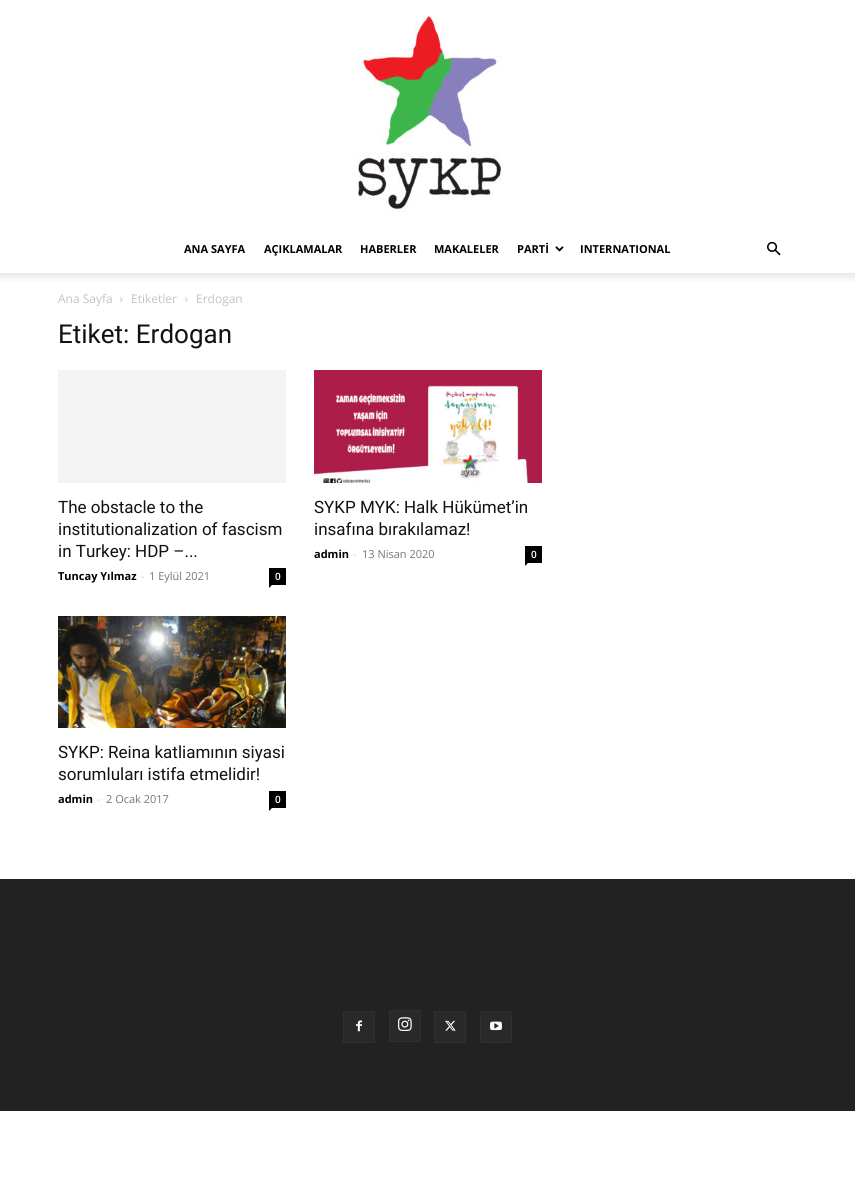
import math
import cairo

surface = cairo.ImageSurface(cairo.Format.RGB24, 855, 1190)
ctx = cairo.Context(surface)
options = cairo.FontOptions()
options.set_hint_metrics(cairo.HintMetrics.OFF)
options.set_hint_style(cairo.HintStyle.NONE)
ctx.set_font_options(options)
ctx.set_miter_limit(4)


def ink(r, g, b):
    ctx.set_source_rgb(r / 255, g / 255, b / 255)


def write(x, y, s, family, size, color, bold=False, italic=False):
    ctx.select_font_face(family, cairo.FontSlant.ITALIC if italic else cairo.FontSlant.NORMAL, cairo.FontWeight.BOLD if bold else cairo.FontWeight.NORMAL)
    ctx.set_font_size(size)
    ink(*color)
    ctx.move_to(x, y)
    ctx.show_text(s)


def block(x, y, w, h, *color):
    ink(*color)
    ctx.rectangle(x, y, w, h)
    ctx.fill()


def paste(path, x, y, w, h):
    ctx.save()
    ctx.set_source_surface(cairo.ImageSurface.create_from_png(path), x, y)
    ctx.rectangle(x, y, w, h)
    ctx.fill()
    ctx.restore()


s1 = dict(family="Open Sans", size=11, color=(0, 0, 0), bold=True)
s2 = dict(family="Open Sans", size=12, color=(195, 195, 195))
s3 = dict(family="Roboto", size=26, color=(17, 17, 17))
s4 = dict(family="Roboto", size=17, color=(17, 17, 17))
s5 = dict(family="Open Sans", size=11, color=(204, 204, 204))
s6 = dict(family="Open Sans", size=11, color=(118, 118, 118))
s7 = dict(family="Open Sans SemiBold", size=10, color=(255, 255, 255))

ink(255, 255, 255)
ctx.paint()
paste("pic1.png", 358, 16, 144, 199)
write(184, 253, "ANA SAYFA", **s1)
write(264, 253, "AÇIKLAMALAR", **s1)
write(360, 253, "HABERLER", **s1)
write(434, 253, "MAKALELER", **s1)
write(517, 253, "PARTİ", **s1)
paste("pic2.png", 555, 246, 9, 6)
write(580, 253, "INTERNATIONAL", **s1)
paste("pic3.png", 767, 241, 14, 15)
paste("pic4.png", 0, 273, 855, 9)
write(58, 303, "Ana Sayfa", **s2)
paste("pic5.png", 120, 297, 3, 5)
write(131, 303, "Etiketler", **s2)
paste("pic5.png", 185, 297, 3, 5)
write(196, 303, "Erdogan", **s2)
write(58, 343, "Etiket: Erdogan", **s3)
block(58, 370, 228, 113, 243, 243, 243)
write(58, 513, "The obstacle to the", **s4)
write(58, 535, "institutionalization of fascism", **s4)
write(58, 557, "in Turkey: HDP –...", **s4)
write(58, 580, "Tuncay Yılmaz", **s1)
write(141, 580, "-", **s5)
write(149, 580, "1 Eylül 2021", **s6)
block(269, 568, 17, 17, 0, 0, 0)
write(275, 580, "0", **s7)
ink(0, 0, 0)
ctx.new_path()
ctx.move_to(269, 585)
ctx.line_to(272, 585)
ctx.line_to(269, 588)
ctx.close_path()
ctx.fill()
paste("pic6.png", 314, 370, 228, 113)
write(314, 513, "SYKP MYK: Halk Hükümet’in", **s4)
write(314, 535, "insafına bırakılamaz!", **s4)
write(314, 558, "admin", **s1)
write(353, 558, "-", **s5)
write(362, 558, "13 Nisan 2020", **s6)
block(525, 546, 17, 17, 0, 0, 0)
write(531, 558, "0", **s7)
ink(0, 0, 0)
ctx.new_path()
ctx.move_to(525, 563)
ctx.line_to(528, 563)
ctx.line_to(525, 566)
ctx.close_path()
ctx.fill()
paste("pic7.png", 58, 616, 228, 112)
write(58, 758, "SYKP: Reina katliamının siyasi", **s4)
write(58, 780, "sorumluları istifa etmelidir!", **s4)
write(58, 803, "admin", **s1)
write(97, 803, "-", **s5)
write(106, 803, "2 Ocak 2017", **s6)
block(269, 791, 17, 17, 0, 0, 0)
write(275, 803, "0", **s7)
ink(0, 0, 0)
ctx.new_path()
ctx.move_to(269, 808)
ctx.line_to(272, 808)
ctx.line_to(269, 811)
ctx.close_path()
ctx.fill()
block(0, 879, 855, 232, 34, 34, 34)
block(344, 1012, 30, 30, 41, 41, 41)
paste("pic8.png", 356, 1020, 6, 12)
ctx.rectangle(343.5, 1011.5, 31, 31)
ink(47, 47, 47)
ctx.set_line_width(1)
ctx.stroke()
block(390, 1011, 30, 30, 41, 41, 41)
paste("pic9.png", 398, 1017, 14, 14)
ctx.rectangle(389.5, 1010.5, 31, 31)
ink(47, 47, 47)
ctx.stroke()
block(435, 1012, 30, 30, 41, 41, 41)
paste("pic10.png", 445, 1020, 11, 11)
ctx.rectangle(434.5, 1011.5, 31, 31)
ink(47, 47, 47)
ctx.stroke()
block(481, 1012, 30, 30, 41, 41, 41)
paste("pic11.png", 490, 1021, 12, 10)
ctx.rectangle(480.5, 1011.5, 31, 31)
ink(47, 47, 47)
ctx.stroke()
surface.write_to_png("screenshot.png")
